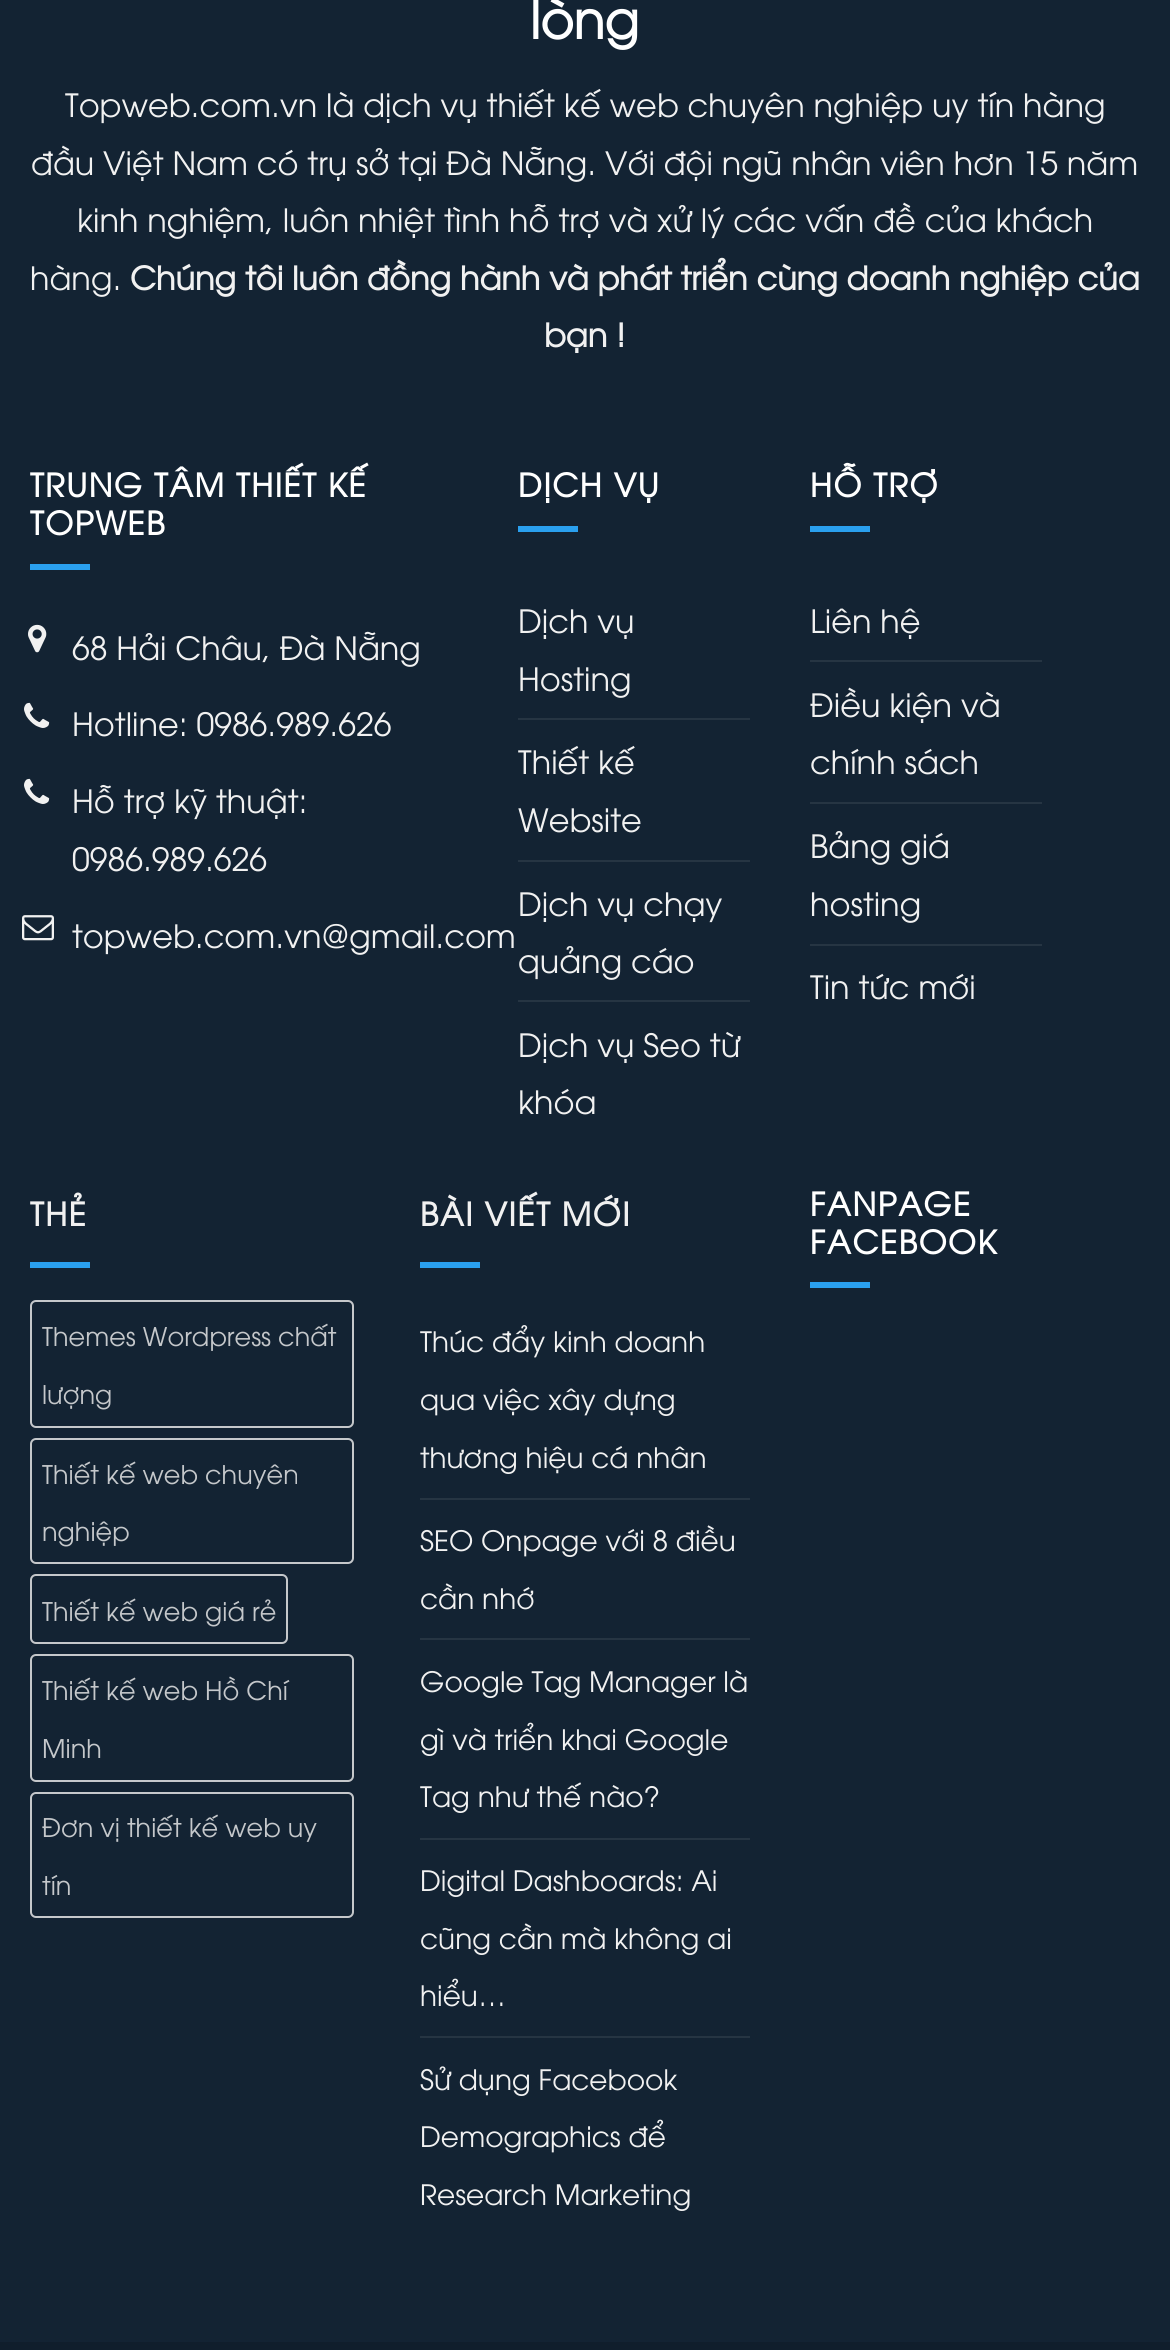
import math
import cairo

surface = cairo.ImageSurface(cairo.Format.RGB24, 1170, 2350)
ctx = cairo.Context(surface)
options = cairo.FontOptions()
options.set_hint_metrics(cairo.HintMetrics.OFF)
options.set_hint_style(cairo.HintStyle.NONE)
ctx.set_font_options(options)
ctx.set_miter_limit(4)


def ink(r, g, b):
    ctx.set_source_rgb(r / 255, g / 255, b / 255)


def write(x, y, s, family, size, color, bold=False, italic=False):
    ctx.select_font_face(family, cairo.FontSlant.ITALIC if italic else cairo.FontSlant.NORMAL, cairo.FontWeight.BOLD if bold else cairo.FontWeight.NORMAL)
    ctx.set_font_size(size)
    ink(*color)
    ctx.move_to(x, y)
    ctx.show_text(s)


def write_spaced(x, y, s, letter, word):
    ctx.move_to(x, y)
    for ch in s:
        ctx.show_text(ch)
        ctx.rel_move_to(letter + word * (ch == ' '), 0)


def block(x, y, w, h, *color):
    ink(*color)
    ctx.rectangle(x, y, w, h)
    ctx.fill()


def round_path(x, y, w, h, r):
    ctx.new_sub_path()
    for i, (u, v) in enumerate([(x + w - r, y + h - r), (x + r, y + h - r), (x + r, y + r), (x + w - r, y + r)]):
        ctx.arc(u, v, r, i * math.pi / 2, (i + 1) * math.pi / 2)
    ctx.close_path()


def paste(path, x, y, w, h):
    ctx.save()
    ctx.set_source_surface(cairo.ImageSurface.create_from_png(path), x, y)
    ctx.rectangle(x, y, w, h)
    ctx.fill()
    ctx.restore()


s1 = dict(family="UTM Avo", size=51, color=(255, 255, 255), bold=True)
s2 = dict(family="UTM Avo", size=32, color=(241, 241, 241))
s3 = dict(family="UTM Avo", size=32, color=(241, 241, 241), bold=True)
s4 = dict(family="UTM Avo", size=25.6, color=(197, 200, 203))
s5 = dict(family="UTM Avo", size=28, color=(241, 241, 241))

ink(16, 30, 44)
ctx.paint()
block(0, 0, 1170, 2342, 19, 35, 51)
write(530, 39, "lòng", **s1)
write(65, 117, "Topweb.com.vn là dịch vụ thiết kế web chuyên nghiệp uy tín hàng", **s2)
write(31, 175, "đầu Việt Nam có trụ sở tại Đà Nẵng. Với đội ngũ nhân viên hơn 15 năm", **s2)
write(77, 232, "kinh nghiệm, luôn nhiệt tình hỗ trợ và xử lý các vấn đề của khách", **s2)
write(30, 290, "hàng.", **s2)
write(130, 290, "Chúng tôi luôn đồng hành và phát triển cùng doanh nghiệp của", **s3)
write(544, 347, "bạn !", **s3)
ink(255, 255, 255)
write_spaced(30, 497, "TRUNG TÂM THIẾT KẾ", 1.6, 0)
write_spaced(30, 535, "TOPWEB", 1.6, 0)
block(30, 564, 60, 6, 42, 160, 239)
paste("pic1.png", 28, 624, 19, 29)
write(72, 660, "68 Hải Châu, Đà Nẵng", **s2)
paste("pic2.png", 24, 702, 26, 26)
write(72, 736, "Hotline: 0986.989.626", **s2)
paste("pic2.png", 24, 778, 26, 26)
write(72, 813, "Hỗ trợ kỹ thuật:", **s2)
write(72, 871, "0986.989.626", **s2)
paste("pic3.png", 22, 915, 32, 26)
write(72, 948, "topweb.com.vn@gmail.com", **s2)
ctx.select_font_face("UTM Avo", cairo.FontSlant.NORMAL, cairo.FontWeight.BOLD)
ink(255, 255, 255)
write_spaced(518, 497, "DỊCH VỤ", 1.6, 0)
block(518, 526, 60, 6, 42, 160, 239)
write(518, 633, "Dịch vụ", **s2)
write(518, 691, "Hosting", **s2)
block(518, 718, 232, 2, 38, 53, 67)
write(518, 774, "Thiết kế", **s2)
write(518, 832, "Website", **s2)
block(518, 860, 232, 2, 38, 53, 67)
write(518, 916, "Dịch vụ chạy", **s2)
write(518, 973, "quảng cáo", **s2)
block(518, 1000, 232, 2, 38, 53, 67)
write(518, 1057, "Dịch vụ Seo từ", **s2)
write(518, 1114, "khóa", **s2)
ctx.select_font_face("UTM Avo", cairo.FontSlant.NORMAL, cairo.FontWeight.BOLD)
ink(255, 255, 255)
write_spaced(810, 497, "HỖ TRỢ", 1.6, 0)
block(810, 526, 60, 6, 42, 160, 239)
write(810, 633, "Liên hệ", **s2)
block(810, 660, 232, 2, 38, 53, 67)
write(810, 717, "Điều kiện và", **s2)
write(810, 774, "chính sách", **s2)
block(810, 802, 232, 2, 38, 53, 67)
write(810, 858, "Bảng giá", **s2)
write(810, 916, "hosting", **s2)
block(810, 944, 232, 2, 38, 53, 67)
write(810, 999, "Tin tức mới", **s2)
ctx.select_font_face("UTM Avo", cairo.FontSlant.NORMAL, cairo.FontWeight.BOLD)
write_spaced(30, 1226, "THẺ", 1.6, 0)
block(30, 1262, 60, 6, 42, 160, 239)
round_path(31, 1301, 322, 126, 5)
ink(197, 200, 203)
ctx.stroke()
write(42, 1346, "Themes Wordpress chất", **s4)
write(42, 1404, "lượng", **s4)
round_path(31, 1439, 322, 124, 5)
ctx.stroke()
write(42, 1484, "Thiết kế web chuyên", **s4)
write(42, 1541, "nghiệp", **s4)
round_path(31, 1575, 256, 68, 5)
ctx.stroke()
write(42, 1621, "Thiết kế web giá rẻ", **s4)
round_path(31, 1655, 322, 126, 5)
ctx.stroke()
write(42, 1700, "Thiết kế web Hồ Chí", **s4)
write(42, 1758, "Minh", **s4)
round_path(31, 1793, 322, 124, 5)
ctx.stroke()
write(42, 1837, "Đơn vị thiết kế web uy", **s4)
write(42, 1895, "tín", **s4)
ctx.select_font_face("UTM Avo", cairo.FontSlant.NORMAL, cairo.FontWeight.BOLD)
ctx.set_font_size(32)
ink(241, 241, 241)
write_spaced(420, 1226, "BÀI VIẾT MỚI", 1.6, 0)
block(420, 1262, 60, 6, 42, 160, 239)
write(420, 1352, "Thúc đẩy kinh doanh", **s5)
write(420, 1410, "qua việc xây dựng", **s5)
write(420, 1468, "thương hiệu cá nhân", **s5)
block(420, 1498, 330, 2, 38, 53, 67)
write(420, 1551, "SEO Onpage với 8 điều", **s5)
write(420, 1609, "cần nhớ", **s5)
block(420, 1638, 330, 2, 38, 53, 67)
write(420, 1692, "Google Tag Manager là", **s5)
write(420, 1750, "gì và triển khai Google", **s5)
write(420, 1807, "Tag như thế nào?", **s5)
block(420, 1838, 330, 2, 38, 53, 67)
write(420, 1891, "Digital Dashboards: Ai", **s5)
write(420, 1949, "cũng cần mà không ai", **s5)
write(420, 2006, "hiểu…", **s5)
block(420, 2036, 330, 2, 38, 53, 67)
write(420, 2090, "Sử dụng Facebook", **s5)
write(420, 2147, "Demographics để", **s5)
write(420, 2205, "Research Marketing", **s5)
ctx.select_font_face("UTM Avo", cairo.FontSlant.NORMAL, cairo.FontWeight.BOLD)
ctx.set_font_size(32)
ink(255, 255, 255)
write_spaced(810, 1216, "FANPAGE", 1.6, 0)
write_spaced(810, 1254, "FACEBOOK", 1.6, 0)
block(810, 1282, 60, 6, 42, 160, 239)
surface.write_to_png("screenshot.png")
